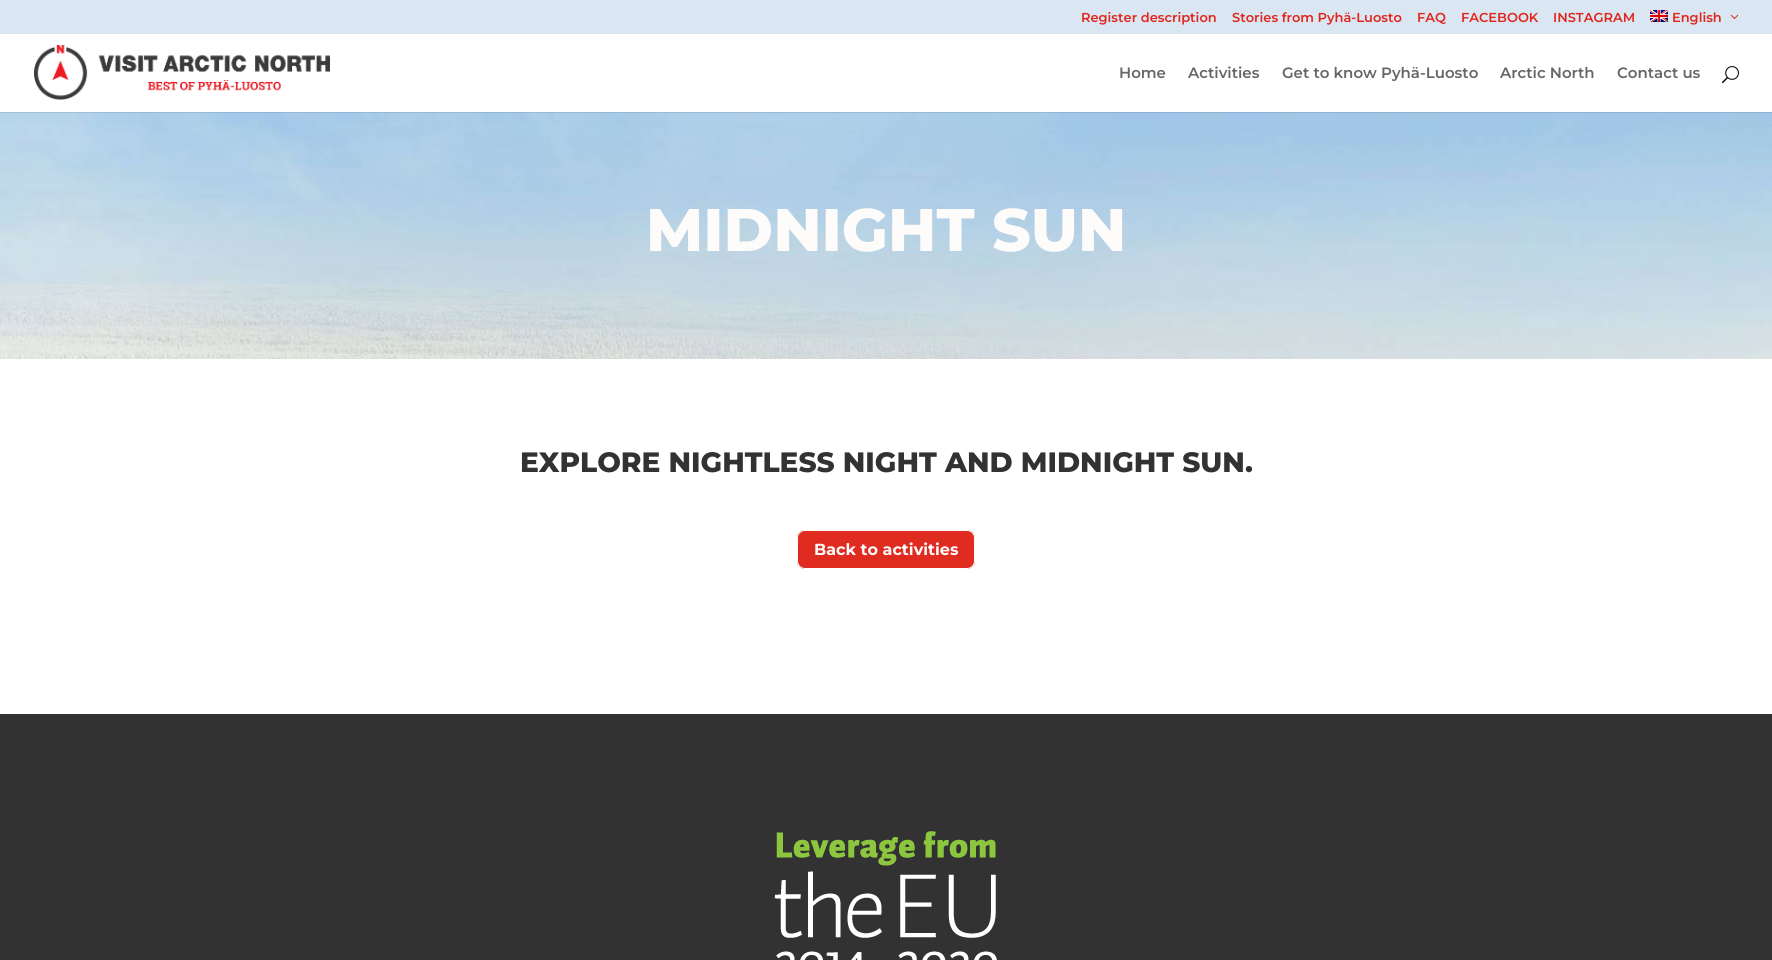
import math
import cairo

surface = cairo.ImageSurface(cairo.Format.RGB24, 1772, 960)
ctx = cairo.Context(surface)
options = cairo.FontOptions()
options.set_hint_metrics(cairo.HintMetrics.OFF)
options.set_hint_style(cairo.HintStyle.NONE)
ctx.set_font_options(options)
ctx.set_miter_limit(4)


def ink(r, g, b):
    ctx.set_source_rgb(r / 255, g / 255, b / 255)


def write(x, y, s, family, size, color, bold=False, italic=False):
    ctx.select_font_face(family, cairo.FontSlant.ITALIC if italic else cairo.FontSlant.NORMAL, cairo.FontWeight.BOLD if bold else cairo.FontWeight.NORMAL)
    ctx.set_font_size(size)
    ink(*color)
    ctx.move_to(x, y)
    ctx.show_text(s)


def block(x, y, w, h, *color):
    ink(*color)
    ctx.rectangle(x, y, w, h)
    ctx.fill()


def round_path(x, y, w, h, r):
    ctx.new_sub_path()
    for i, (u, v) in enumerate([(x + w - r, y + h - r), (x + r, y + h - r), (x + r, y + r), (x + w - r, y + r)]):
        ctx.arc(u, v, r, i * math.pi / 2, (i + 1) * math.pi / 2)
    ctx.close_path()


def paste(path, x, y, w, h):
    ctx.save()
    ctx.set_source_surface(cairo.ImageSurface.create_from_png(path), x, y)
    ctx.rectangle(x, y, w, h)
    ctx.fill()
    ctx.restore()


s1 = dict(family="Montserrat SemiBold", size=13, color=(225, 38, 28))
s2 = dict(family="Montserrat SemiBold", size=15, color=(102, 102, 102))
s3 = dict(family="Montserrat ExtraBold", size=60, color=(254, 251, 251))
s4 = dict(family="Montserrat ExtraBold", size=28, color=(50, 50, 50))
s5 = dict(family="Montserrat", size=16, color=(254, 251, 251), bold=True)

ink(255, 255, 255)
ctx.paint()
block(0, 0, 1772, 34, 218, 230, 242)
write(1081, 22, "Register description", **s1)
write(1232, 22, "Stories from Pyhä-Luosto", **s1)
write(1417, 22, "FAQ", **s1)
write(1461, 22, "FACEBOOK", **s1)
write(1553, 22, "INSTAGRAM", **s1)
paste("pic1.png", 1650, 10, 18, 12)
write(1672, 22, "English", **s1)
paste("pic2.png", 1730, 14, 9, 5)
paste("pic5.png", 0, 112, 1772, 247)
ctx.set_source_rgba(0, 0, 0, 0.1)
ctx.rectangle(0, 112, 1772, 1)
ctx.fill()
paste("pic3.png", 34, 45, 296, 55)
write(1119, 78, "Home", **s2)
write(1188, 78, "Activities", **s2)
write(1282, 78, "Get to know Pyhä-Luosto", **s2)
write(1500, 78, "Arctic North", **s2)
write(1617, 78, "Contact us", **s2)
paste("pic4.png", 1722, 66, 17, 18)
write(646, 251, "MIDNIGHT SUN", **s3)
write(520, 472, "EXPLORE NIGHTLESS NIGHT AND MIDNIGHT SUN.", **s4)
ink(224, 43, 32)
round_path(797, 530, 178, 39, 8)
ctx.fill()
round_path(797.5, 530.5, 177, 38, 7.5)
ctx.set_source_rgba(1, 1, 1, 0.98)
ctx.set_line_width(1)
ctx.stroke()
write(814, 555, "Back to activities", **s5)
block(0, 714, 1772, 246, 50, 50, 50)
paste("pic6.png", 774, 831, 223, 129)
surface.write_to_png("screenshot.png")
